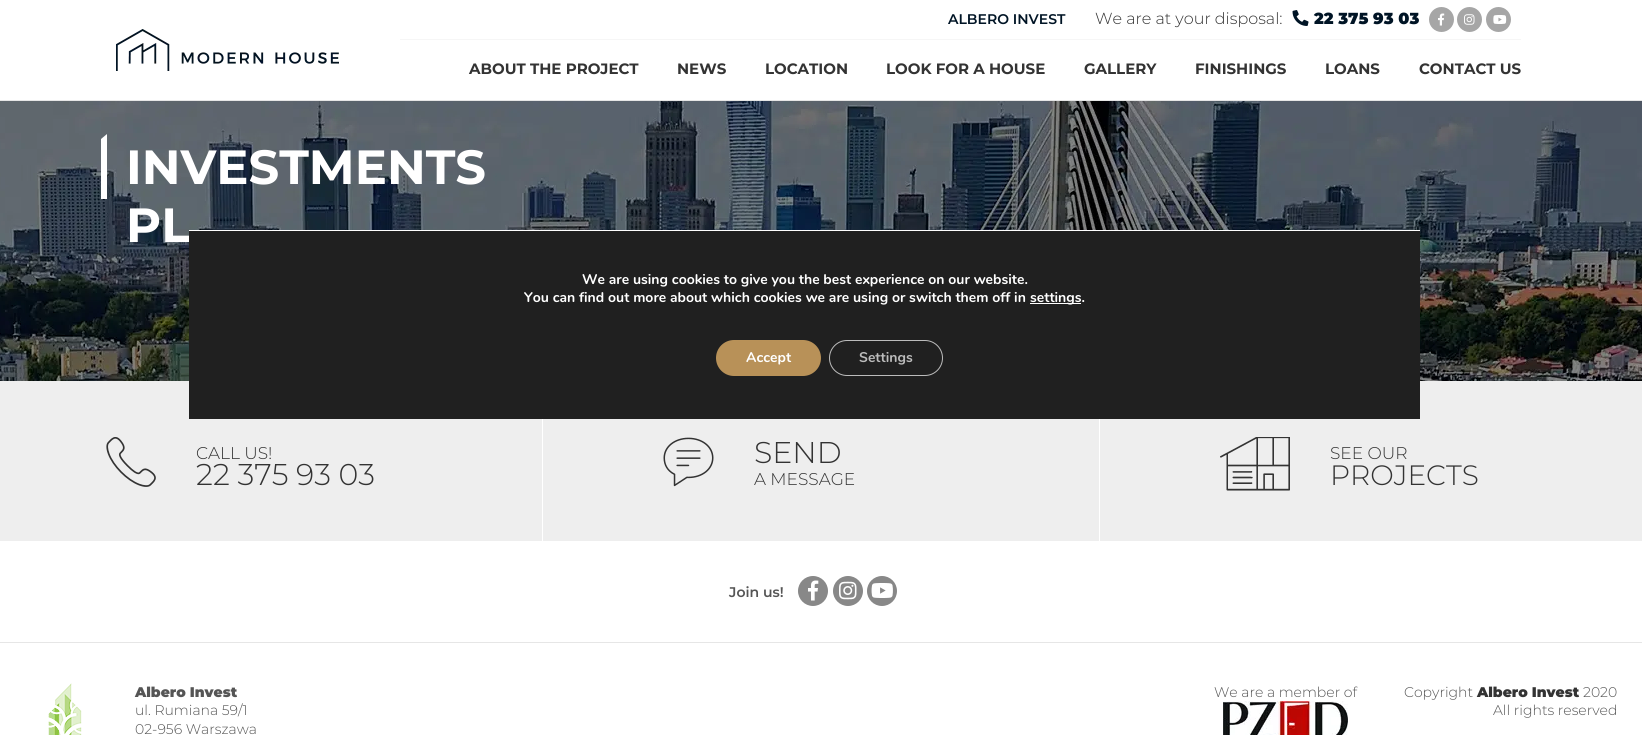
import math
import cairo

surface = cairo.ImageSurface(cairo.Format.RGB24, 1642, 735)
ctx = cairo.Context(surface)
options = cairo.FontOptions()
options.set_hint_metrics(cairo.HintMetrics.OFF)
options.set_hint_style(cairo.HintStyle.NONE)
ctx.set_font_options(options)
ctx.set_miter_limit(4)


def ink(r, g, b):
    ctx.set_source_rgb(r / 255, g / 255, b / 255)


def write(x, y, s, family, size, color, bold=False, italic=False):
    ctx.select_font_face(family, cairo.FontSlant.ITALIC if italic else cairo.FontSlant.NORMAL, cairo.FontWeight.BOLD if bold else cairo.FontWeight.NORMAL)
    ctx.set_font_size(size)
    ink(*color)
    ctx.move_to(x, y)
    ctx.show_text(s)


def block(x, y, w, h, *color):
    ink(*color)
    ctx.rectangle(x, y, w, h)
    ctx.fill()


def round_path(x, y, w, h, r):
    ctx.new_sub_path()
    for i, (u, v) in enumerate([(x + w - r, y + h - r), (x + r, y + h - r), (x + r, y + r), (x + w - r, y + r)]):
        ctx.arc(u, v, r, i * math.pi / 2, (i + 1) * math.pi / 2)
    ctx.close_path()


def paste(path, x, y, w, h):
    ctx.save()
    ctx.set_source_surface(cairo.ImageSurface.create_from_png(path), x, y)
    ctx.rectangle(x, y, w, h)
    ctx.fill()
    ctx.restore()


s1 = dict(family="Montserrat SemiBold", size=14, color=(0, 20, 37))
s2 = dict(family="Montserrat Light", size=16, color=(51, 51, 51))
s3 = dict(family="Montserrat Black", size=16, color=(0, 20, 37))
s4 = dict(family="Montserrat", size=15, color=(51, 51, 51), bold=True)
s5 = dict(family="Montserrat", size=48, color=(255, 255, 255), bold=True)
s6 = dict(family="Montserrat Light", size=17, color=(51, 51, 51))
s7 = dict(family="Montserrat Light", size=30, color=(51, 51, 51))
s8 = dict(family="Montserrat Light", size=28, color=(51, 51, 51))
s9 = dict(family="Nunito", size=14, color=(255, 255, 255), bold=True)
s10 = dict(family="Nunito", size=14, color=(188, 188, 188), bold=True)
s11 = dict(family="Montserrat SemiBold", size=14, color=(85, 85, 85))
s12 = dict(family="Montserrat Black", size=14, color=(85, 85, 85))
s13 = dict(family="Montserrat Light", size=14, color=(85, 85, 85))
s14 = dict(family="Montserrat Black", size=14, color=(51, 51, 51))

ink(255, 255, 255)
ctx.paint()
block(0, 100, 1642, 1, 230, 230, 230)
paste("pic1.png", 116, 29, 223, 42)
block(400, 39, 1121, 1, 246, 246, 246)
write(948, 24, "ALBERO INVEST", **s1)
write(1095, 24, "We are at your disposal:", **s2)
paste("pic2.png", 1292, 10, 17, 16)
write(1314, 24, "22 375 93 03", **s3)
ink(166, 166, 166)
ctx.new_path()
ctx.arc(1441.5, 19.5, 12.5, 0, 2 * math.pi)
ctx.fill()
paste("pic3.png", 1438, 13, 7, 13)
ctx.arc(1469.5, 19.5, 12.5, 0, 2 * math.pi)
ctx.fill()
paste("pic4.png", 1464, 14, 11, 11)
ctx.arc(1498.5, 19.5, 12.5, 0, 2 * math.pi)
ctx.fill()
paste("pic5.png", 1493, 15, 14, 9)
write(469, 74, "ABOUT THE PROJECT", **s4)
write(677, 74, "NEWS", **s4)
write(765, 74, "LOCATION", **s4)
write(886, 74, "LOOK FOR A HOUSE", **s4)
write(1084, 74, "GALLERY", **s4)
write(1195, 74, "FINISHINGS", **s4)
write(1325, 74, "LOANS", **s4)
write(1419, 74, "CONTACT US", **s4)
paste("pic6.png", 0, 101, 1642, 280)
block(101, 154, 6, 45, 255, 255, 255)
ctx.new_path()
ctx.move_to(101, 139)
ctx.line_to(107, 134)
ctx.line_to(107, 154)
ctx.line_to(101, 159)
ctx.close_path()
ctx.fill()
write(126, 184, "INVESTMENTS", **s5)
write(126, 242, "PL", **s5)
block(0, 381, 542, 160, 238, 238, 238)
paste("pic7.png", 106, 437, 50, 50)
write(196, 459, "CALL US!", **s6)
write(196, 485, "22 375 93 03", **s7)
block(543, 419, 556, 122, 238, 238, 238)
paste("pic8.png", 663, 437, 51, 50)
write(754, 463, "SEND", **s7)
write(754, 485, "A MESSAGE", **s6)
block(1100, 381, 542, 160, 238, 238, 238)
paste("pic9.png", 1220, 437, 70, 54)
write(1330, 459, "SEE OUR", **s6)
write(1330, 485, "PROJECTS", **s8)
block(189, 231, 1231, 188, 32, 32, 32)
block(189, 230, 1231, 1, 255, 255, 255)
write(582, 284, "We are using cookies to give you the best experience on our website.", **s9)
write(524, 302, "You can find out more about which cookies we are using or switch them off in", **s9)
block(1030, 303, 51, 1, 255, 255, 255)
write(1030, 302, "settings.", **s9)
ink(184, 145, 88)
round_path(716, 340, 105, 36, 18)
ctx.fill()
write(746, 362, "Accept", **s9)
round_path(829.5, 340.5, 113, 35, 17.5)
ink(188, 188, 188)
ctx.set_line_width(1)
ctx.stroke()
write(859, 362, "Settings", **s10)
block(0, 642, 1642, 1, 230, 230, 230)
write(729, 597, "Join us!", **s11)
ink(136, 136, 136)
ctx.new_path()
ctx.arc(813, 591, 15, 0, 2 * math.pi)
ctx.fill()
paste("pic10.png", 808, 580, 11, 21)
ctx.arc(848, 591, 15, 0, 2 * math.pi)
ctx.fill()
paste("pic11.png", 839, 581, 18, 19)
ctx.arc(882, 591, 15, 0, 2 * math.pi)
ctx.fill()
paste("pic12.png", 871, 583, 22, 15)
paste("pic13.png", 48, 683, 34, 52)
write(135, 697, "Albero Invest", **s12)
write(135, 715, "ul. Rumiana 59/1", **s13)
write(135, 734, "02-956 Warszawa", **s13)
write(1214, 697, "We are a member of", **s13)
paste("pic14.png", 1223, 701, 125, 34)
write(1404, 697, "Copyright", **s13)
write(1477, 697, "Albero Invest", **s14)
write(1583, 697, "2020", **s13)
write(1493, 715, "All rights reserved", **s13)
surface.write_to_png("screenshot.png")
